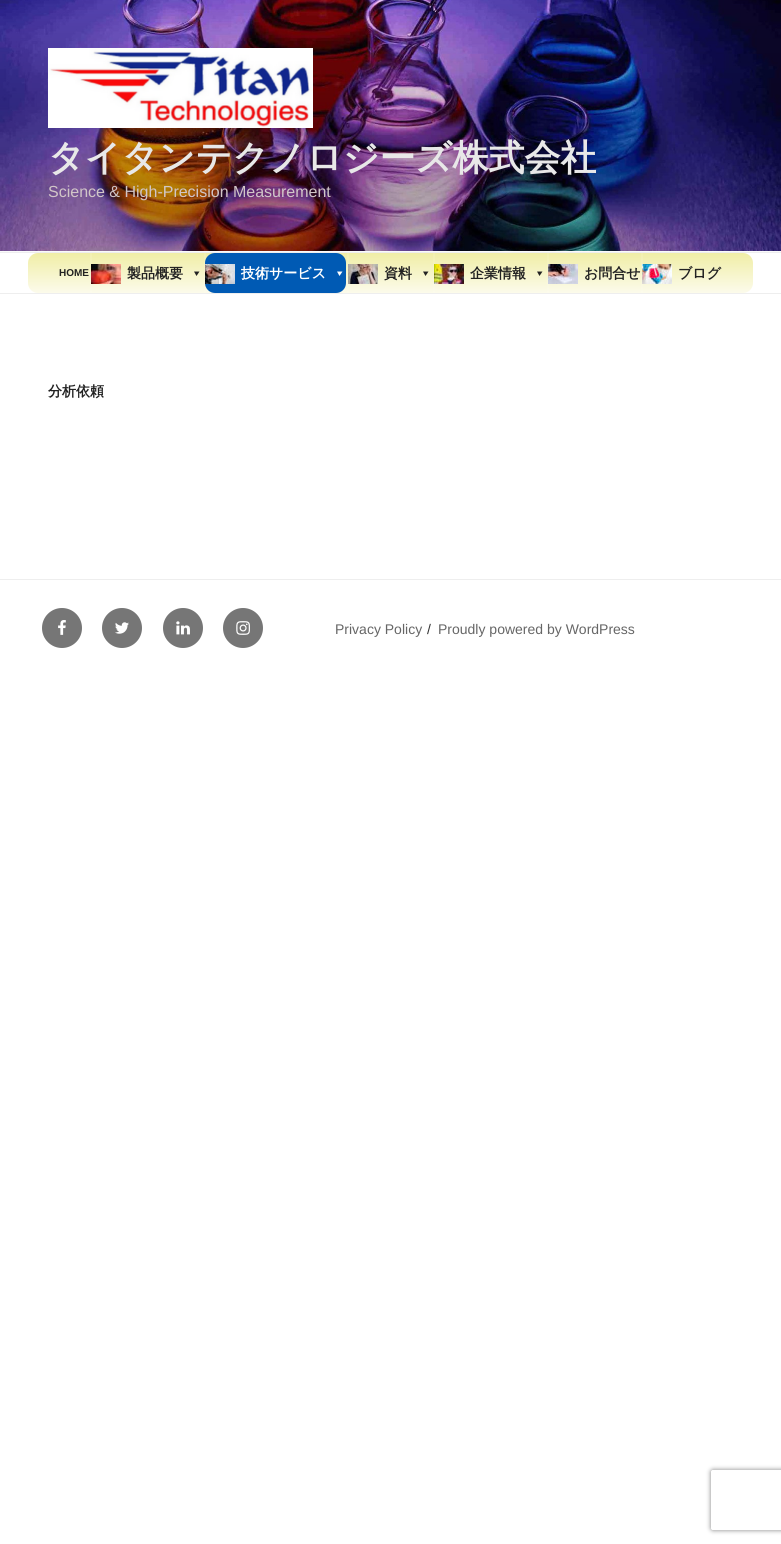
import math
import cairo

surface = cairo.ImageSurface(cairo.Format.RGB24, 781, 1544)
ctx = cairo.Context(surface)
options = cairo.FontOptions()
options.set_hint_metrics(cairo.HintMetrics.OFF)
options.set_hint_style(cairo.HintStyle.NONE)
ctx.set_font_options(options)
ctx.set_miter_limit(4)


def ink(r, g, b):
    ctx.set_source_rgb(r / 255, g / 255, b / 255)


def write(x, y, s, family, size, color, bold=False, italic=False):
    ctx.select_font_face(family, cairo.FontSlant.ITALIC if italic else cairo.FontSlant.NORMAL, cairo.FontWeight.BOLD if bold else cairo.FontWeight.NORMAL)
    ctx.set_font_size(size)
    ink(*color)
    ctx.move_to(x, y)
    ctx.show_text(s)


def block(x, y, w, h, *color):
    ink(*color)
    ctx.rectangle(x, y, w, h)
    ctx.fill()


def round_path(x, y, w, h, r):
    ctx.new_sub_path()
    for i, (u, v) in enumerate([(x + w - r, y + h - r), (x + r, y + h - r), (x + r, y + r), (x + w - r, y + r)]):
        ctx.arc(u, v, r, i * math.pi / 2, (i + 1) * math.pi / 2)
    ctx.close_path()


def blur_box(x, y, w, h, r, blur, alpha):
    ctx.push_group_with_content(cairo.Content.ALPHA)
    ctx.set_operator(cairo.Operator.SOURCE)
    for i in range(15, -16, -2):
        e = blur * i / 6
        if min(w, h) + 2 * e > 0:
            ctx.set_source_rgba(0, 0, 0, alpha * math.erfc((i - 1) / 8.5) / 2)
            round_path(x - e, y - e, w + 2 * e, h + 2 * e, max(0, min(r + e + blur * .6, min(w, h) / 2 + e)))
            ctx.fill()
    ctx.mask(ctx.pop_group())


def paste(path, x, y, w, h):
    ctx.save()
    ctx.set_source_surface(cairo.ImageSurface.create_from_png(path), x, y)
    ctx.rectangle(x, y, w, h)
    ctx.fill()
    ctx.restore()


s1 = dict(family="WenQuanYi Zen Hei", size=36, color=(232, 232, 232), bold=True)
s2 = dict(family="Liberation Sans", size=16, color=(209, 198, 200))
s3 = dict(family="Liberation Sans", size=10, color=(34, 34, 34), bold=True)
s4 = dict(family="WenQuanYi Zen Hei", size=14, color=(34, 34, 34), bold=True)
s5 = dict(family="WenQuanYi Zen Hei", size=14, color=(255, 255, 255), bold=True)
s6 = dict(family="Liberation Sans", size=14, color=(102, 102, 102))
s7 = dict(family="Liberation Sans", size=14, color=(51, 51, 51))

ink(255, 255, 255)
ctx.paint()
block(0, 251, 781, 1, 250, 250, 250)
paste("pic1.png", 0, 0, 781, 251)
paste("pic2.png", 48, 48, 265, 80)
write(48, 170, "タイタンテクノロジーズ株式会社", **s1)
write(48, 197, "Science & High-Precision Measurement", **s2)
block(0, 252, 781, 1, 238, 238, 238)
block(0, 293, 781, 1, 238, 238, 238)
gradient = cairo.LinearGradient(391, 253, 391, 293)
gradient.add_color_stop_rgba(0, 0.941, 0.933, 0.651, 1)
gradient.add_color_stop_rgba(1, 0.988, 0.984, 0.922, 1)
ctx.set_source(gradient)
round_path(28, 253, 725, 40, 10)
ctx.fill()
gradient = cairo.LinearGradient(391, 253, 391, 293)
gradient.add_color_stop_rgba(0, 0.949, 0.941, 0.686, 1)
gradient.add_color_stop_rgba(1, 0.988, 0.984, 0.929, 1)
ctx.set_source(gradient)
ctx.rectangle(641, 253, 1, 40)
ctx.fill()
ctx.rectangle(642, 253, 1, 40)
ctx.fill()
ctx.rectangle(547, 253, 1, 40)
ctx.fill()
ctx.rectangle(548, 253, 1, 40)
ctx.fill()
ctx.rectangle(433, 253, 1, 40)
ctx.fill()
ctx.rectangle(434, 253, 1, 40)
ctx.fill()
ctx.rectangle(347, 253, 1, 40)
ctx.fill()
ctx.rectangle(348, 253, 1, 40)
ctx.fill()
ctx.rectangle(204, 253, 1, 40)
ctx.fill()
ctx.rectangle(205, 253, 1, 40)
ctx.fill()
ctx.rectangle(90, 253, 1, 40)
ctx.fill()
ctx.rectangle(91, 253, 1, 40)
ctx.fill()
write(59, 276, "HOME", **s3)
paste("pic3.png", 91, 264, 30, 20)
write(127, 278, "製品概要", **s4)
ctx.new_path()
ctx.move_to(199.5, 271.5)
ctx.line_to(196.5, 276)
ctx.line_to(194, 271.5)
ctx.close_path()
ctx.fill()
ink(0, 90, 180)
round_path(205, 253, 141, 40, 10)
ctx.fill()
paste("pic4.png", 205, 264, 30, 20)
write(241, 278, "技術サービス", **s5)
ctx.new_path()
ctx.move_to(342.5, 271.5)
ctx.line_to(339.5, 276)
ctx.line_to(337, 271.5)
ctx.close_path()
ctx.fill()
paste("pic5.png", 348, 264, 30, 20)
write(384, 278, "資料", **s4)
ctx.new_path()
ctx.move_to(428.5, 271.5)
ctx.line_to(425.5, 276)
ctx.line_to(423, 271.5)
ctx.close_path()
ctx.fill()
paste("pic6.png", 434, 264, 30, 20)
write(470, 278, "企業情報", **s4)
ctx.new_path()
ctx.move_to(542.5, 271.5)
ctx.line_to(539.5, 276)
ctx.line_to(537, 271.5)
ctx.close_path()
ctx.fill()
paste("pic7.png", 548, 264, 30, 20)
write(584, 278, "お問合せ", **s4)
paste("pic8.png", 642, 264, 30, 20)
write(678, 278, "ブログ", **s4)
write(48, 396, "分析依頼", **s4)
block(0, 579, 781, 1, 238, 238, 238)
ink(118, 118, 118)
ctx.new_path()
ctx.arc(62, 628, 20, 0, 2 * math.pi)
ctx.fill()
paste("pic9.png", 58, 620, 8, 15)
ctx.arc(122, 628, 20, 0, 2 * math.pi)
ctx.fill()
paste("pic10.png", 115, 622, 14, 12)
ctx.arc(183, 628, 20, 0, 2 * math.pi)
ctx.fill()
paste("pic11.png", 176, 621, 14, 14)
ctx.arc(243, 628, 20, 0, 2 * math.pi)
ctx.fill()
paste("pic12.png", 236, 621, 14, 14)
write(335, 634, "Privacy Policy", **s6)
write(427, 634, "/", **s7)
write(438, 634, "Proudly powered by WordPress", **s6)
ctx.save()
ctx.set_fill_rule(cairo.FillRule.EVEN_ODD)
ctx.new_path()
ctx.move_to(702, 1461)
ctx.line_to(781, 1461)
ctx.line_to(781, 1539)
ctx.line_to(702, 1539)
ctx.close_path()
ctx.move_to(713, 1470)
ctx.line_to(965, 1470)
ctx.curve_to(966, 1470, 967, 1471, 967, 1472)
ctx.line_to(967, 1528)
ctx.curve_to(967, 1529, 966, 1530, 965, 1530)
ctx.line_to(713, 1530)
ctx.curve_to(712, 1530, 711, 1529, 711, 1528)
ctx.line_to(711, 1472)
ctx.curve_to(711, 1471, 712, 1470, 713, 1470)
ctx.close_path()
ctx.clip()
ink(128, 128, 128)
blur_box(711, 1470, 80, 60, 2, 2.5, 1)
ctx.restore()
surface.write_to_png("screenshot.png")
